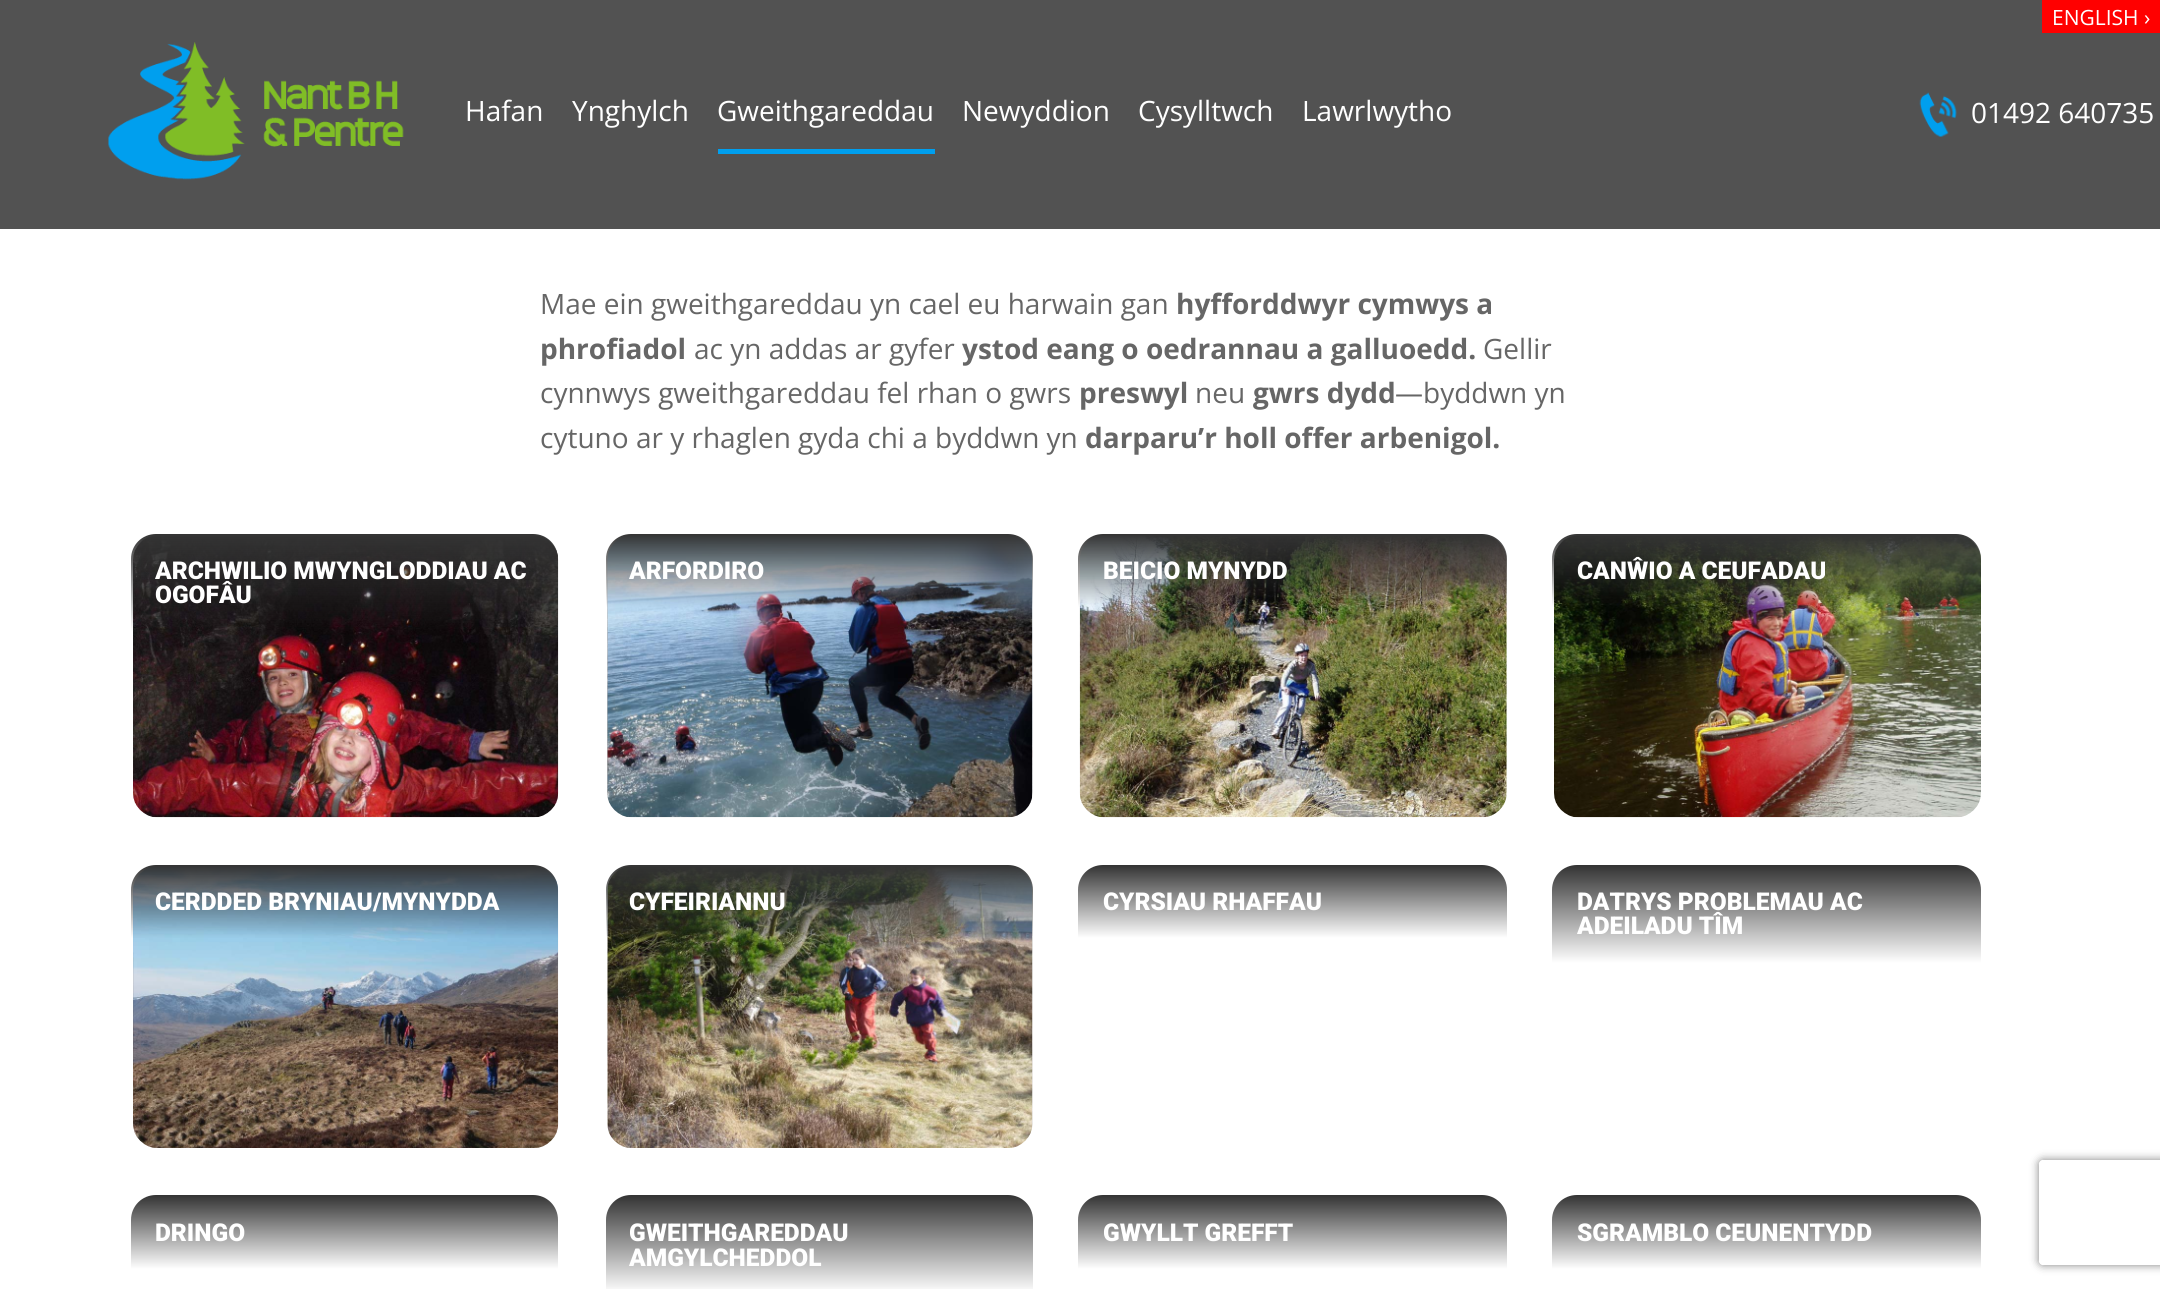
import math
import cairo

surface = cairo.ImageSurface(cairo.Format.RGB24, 2160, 1289)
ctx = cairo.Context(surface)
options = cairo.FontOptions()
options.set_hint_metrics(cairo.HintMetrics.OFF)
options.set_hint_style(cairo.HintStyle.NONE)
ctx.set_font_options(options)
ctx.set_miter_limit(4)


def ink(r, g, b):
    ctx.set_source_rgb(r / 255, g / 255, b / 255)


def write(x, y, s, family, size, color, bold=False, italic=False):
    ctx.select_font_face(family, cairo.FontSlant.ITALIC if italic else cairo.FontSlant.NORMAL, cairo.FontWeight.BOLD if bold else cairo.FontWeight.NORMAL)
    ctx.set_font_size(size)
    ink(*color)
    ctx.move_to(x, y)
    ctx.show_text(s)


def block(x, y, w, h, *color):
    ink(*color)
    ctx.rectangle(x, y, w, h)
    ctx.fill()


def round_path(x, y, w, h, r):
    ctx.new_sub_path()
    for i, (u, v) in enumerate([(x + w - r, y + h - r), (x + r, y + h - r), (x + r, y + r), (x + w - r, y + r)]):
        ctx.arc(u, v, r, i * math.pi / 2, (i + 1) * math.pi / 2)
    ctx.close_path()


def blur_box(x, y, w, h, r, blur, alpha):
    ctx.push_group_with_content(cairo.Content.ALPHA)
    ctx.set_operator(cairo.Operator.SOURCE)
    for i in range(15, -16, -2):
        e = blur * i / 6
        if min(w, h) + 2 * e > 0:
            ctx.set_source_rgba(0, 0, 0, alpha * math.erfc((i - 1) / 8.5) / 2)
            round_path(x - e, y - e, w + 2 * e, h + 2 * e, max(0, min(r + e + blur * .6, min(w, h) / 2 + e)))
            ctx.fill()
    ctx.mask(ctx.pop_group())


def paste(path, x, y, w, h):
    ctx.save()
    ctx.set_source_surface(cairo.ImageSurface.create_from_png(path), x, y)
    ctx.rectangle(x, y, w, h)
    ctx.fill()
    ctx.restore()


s1 = dict(family="Open Sans", size=21, color=(255, 255, 255))
s2 = dict(family="Open Sans", size=28, color=(255, 255, 255))
s3 = dict(family="Open Sans", size=28, color=(102, 102, 102))
s4 = dict(family="Open Sans", size=28, color=(102, 102, 102), bold=True)
s5 = dict(family="Roboto Black", size=24.5, color=(255, 255, 255))

ink(255, 255, 255)
ctx.paint()
block(0, 0, 2160, 229, 82, 82, 82)
block(2042, 0, 118, 33, 255, 0, 0)
write(2052, 25, "ENGLISH ›", **s1)
paste("pic1.png", 108, 42, 296, 138)
write(465, 121, "Hafan", **s2)
write(572, 121, "Ynghylch", **s2)
block(718, 149, 217, 5, 0, 159, 238)
write(717, 121, "Gweithgareddau", **s2)
write(962, 121, "Newyddion", **s2)
write(1138, 121, "Cysylltwch", **s2)
write(1302, 121, "Lawrlwytho", **s2)
paste("pic2.png", 1919, 92, 38, 45)
write(1971, 123, "01492 640735", **s2)
write(540, 314, "Mae ein gweithgareddau yn cael eu harwain gan", **s3)
write(1176, 314, "hyfforddwyr cymwys a", **s4)
write(540, 359, "phrofiadol", **s4)
write(694, 359, "ac yn addas ar gyfer", **s3)
write(962, 359, "ystod eang o oedrannau a galluoedd.", **s4)
write(1483, 359, "Gellir", **s3)
write(540, 403, "cynnwys gweithgareddau fel rhan o gwrs", **s3)
write(1079, 403, "preswyl", **s4)
write(1195, 403, "neu", **s3)
write(1253, 403, "gwrs dydd", **s4)
write(1395, 403, "—byddwn yn", **s3)
write(540, 448, "cytuno ar y rhaglen gyda chi a byddwn yn", **s3)
write(1085, 448, "darparu’r holl offer arbenigol.", **s4)
paste("pic3.png", 133, 535, 426, 283)
gradient = cairo.LinearGradient(345, 534, 345, 632)
gradient.add_color_stop_rgba(0, 0.2, 0.2, 0.2, 1)
gradient.add_color_stop_rgba(1, 0.2, 0.2, 0.2, 0)
ctx.set_source(gradient)
ctx.new_path()
ctx.move_to(156, 534)
ctx.line_to(533, 534)
ctx.curve_to(547, 534, 558, 545, 558, 559)
ctx.line_to(558, 632)
ctx.line_to(131, 632)
ctx.line_to(131, 559)
ctx.curve_to(131, 545, 142, 534, 156, 534)
ctx.close_path()
ctx.fill()
write(155, 579, "ARCHWILIO MWYNGLODDIAU AC", **s5)
write(155, 603, "OGOFÂU", **s5)
paste("pic4.png", 607, 535, 426, 283)
gradient = cairo.LinearGradient(819, 534, 819, 607)
gradient.add_color_stop_rgba(0, 0.2, 0.2, 0.2, 1)
gradient.add_color_stop_rgba(1, 0.2, 0.2, 0.2, 0)
ctx.set_source(gradient)
ctx.new_path()
ctx.move_to(631, 534)
ctx.line_to(1008, 534)
ctx.curve_to(1022, 534, 1033, 545, 1033, 559)
ctx.line_to(1033, 607)
ctx.line_to(606, 607)
ctx.line_to(606, 559)
ctx.curve_to(606, 545, 617, 534, 631, 534)
ctx.close_path()
ctx.fill()
write(629, 579, "ARFORDIRO", **s5)
paste("pic5.png", 1079, 535, 428, 283)
gradient = cairo.LinearGradient(1292, 534, 1292, 607)
gradient.add_color_stop_rgba(0, 0.2, 0.2, 0.2, 1)
gradient.add_color_stop_rgba(1, 0.2, 0.2, 0.2, 0)
ctx.set_source(gradient)
ctx.new_path()
ctx.move_to(1103, 534)
ctx.line_to(1482, 534)
ctx.curve_to(1496, 534, 1507, 545, 1507, 559)
ctx.line_to(1507, 607)
ctx.line_to(1078, 607)
ctx.line_to(1078, 559)
ctx.curve_to(1078, 545, 1089, 534, 1103, 534)
ctx.close_path()
ctx.fill()
write(1103, 579, "BEICIO MYNYDD", **s5)
paste("pic6.png", 1554, 535, 427, 283)
gradient = cairo.LinearGradient(1767, 534, 1767, 607)
gradient.add_color_stop_rgba(0, 0.2, 0.2, 0.2, 1)
gradient.add_color_stop_rgba(1, 0.2, 0.2, 0.2, 0)
ctx.set_source(gradient)
ctx.new_path()
ctx.move_to(1577, 534)
ctx.line_to(1956, 534)
ctx.curve_to(1970, 534, 1981, 545, 1981, 559)
ctx.line_to(1981, 607)
ctx.line_to(1552, 607)
ctx.line_to(1552, 559)
ctx.curve_to(1552, 545, 1563, 534, 1577, 534)
ctx.close_path()
ctx.fill()
write(1577, 579, "CANŴIO A CEUFADAU", **s5)
paste("pic7.png", 133, 866, 426, 282)
gradient = cairo.LinearGradient(345, 865, 345, 938)
gradient.add_color_stop_rgba(0, 0.2, 0.2, 0.2, 1)
gradient.add_color_stop_rgba(1, 0.2, 0.2, 0.2, 0)
ctx.set_source(gradient)
ctx.new_path()
ctx.move_to(156, 865)
ctx.line_to(533, 865)
ctx.curve_to(547, 865, 558, 876, 558, 890)
ctx.line_to(558, 938)
ctx.line_to(131, 938)
ctx.line_to(131, 890)
ctx.curve_to(131, 876, 142, 865, 156, 865)
ctx.close_path()
ctx.fill()
write(155, 910, "CERDDED BRYNIAU/MYNYDDA", **s5)
paste("pic8.png", 607, 866, 426, 282)
gradient = cairo.LinearGradient(819, 865, 819, 938)
gradient.add_color_stop_rgba(0, 0.2, 0.2, 0.2, 1)
gradient.add_color_stop_rgba(1, 0.2, 0.2, 0.2, 0)
ctx.set_source(gradient)
ctx.new_path()
ctx.move_to(631, 865)
ctx.line_to(1008, 865)
ctx.curve_to(1022, 865, 1033, 876, 1033, 890)
ctx.line_to(1033, 938)
ctx.line_to(606, 938)
ctx.line_to(606, 890)
ctx.curve_to(606, 876, 617, 865, 631, 865)
ctx.close_path()
ctx.fill()
write(629, 910, "CYFEIRIANNU", **s5)
gradient = cairo.LinearGradient(1292, 865, 1292, 938)
gradient.add_color_stop_rgba(0, 0.2, 0.2, 0.2, 1)
gradient.add_color_stop_rgba(1, 1, 1, 1, 1)
ctx.set_source(gradient)
ctx.new_path()
ctx.move_to(1103, 865)
ctx.line_to(1482, 865)
ctx.curve_to(1496, 865, 1507, 876, 1507, 890)
ctx.line_to(1507, 938)
ctx.line_to(1078, 938)
ctx.line_to(1078, 890)
ctx.curve_to(1078, 876, 1089, 865, 1103, 865)
ctx.close_path()
ctx.fill()
write(1103, 910, "CYRSIAU RHAFFAU", **s5)
gradient = cairo.LinearGradient(1767, 865, 1767, 963)
gradient.add_color_stop_rgba(0, 0.2, 0.2, 0.2, 1)
gradient.add_color_stop_rgba(1, 1, 1, 1, 1)
ctx.set_source(gradient)
ctx.new_path()
ctx.move_to(1577, 865)
ctx.line_to(1956, 865)
ctx.curve_to(1970, 865, 1981, 876, 1981, 890)
ctx.line_to(1981, 963)
ctx.line_to(1552, 963)
ctx.line_to(1552, 890)
ctx.curve_to(1552, 876, 1563, 865, 1577, 865)
ctx.close_path()
ctx.fill()
write(1577, 910, "DATRYS PROBLEMAU AC", **s5)
write(1577, 934, "ADEILADU TÎM", **s5)
gradient = cairo.LinearGradient(345, 1195, 345, 1269)
gradient.add_color_stop_rgba(0, 0.2, 0.2, 0.2, 1)
gradient.add_color_stop_rgba(1, 1, 1, 1, 1)
ctx.set_source(gradient)
ctx.new_path()
ctx.move_to(156, 1195)
ctx.line_to(533, 1195)
ctx.curve_to(547, 1195, 558, 1206, 558, 1220)
ctx.line_to(558, 1269)
ctx.line_to(131, 1269)
ctx.line_to(131, 1220)
ctx.curve_to(131, 1206, 142, 1195, 156, 1195)
ctx.close_path()
ctx.fill()
write(155, 1241, "DRINGO", **s5)
gradient = cairo.LinearGradient(819, 1195, 819, 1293)
gradient.add_color_stop_rgba(0, 0.2, 0.2, 0.2, 1)
gradient.add_color_stop_rgba(1, 1, 1, 1, 1)
ctx.set_source(gradient)
ctx.new_path()
ctx.move_to(631, 1195)
ctx.line_to(1008, 1195)
ctx.curve_to(1022, 1195, 1033, 1206, 1033, 1220)
ctx.line_to(1033, 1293)
ctx.line_to(606, 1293)
ctx.line_to(606, 1220)
ctx.curve_to(606, 1206, 617, 1195, 631, 1195)
ctx.close_path()
ctx.fill()
write(629, 1241, "GWEITHGAREDDAU", **s5)
write(629, 1266, "AMGYLCHEDDOL", **s5)
gradient = cairo.LinearGradient(1292, 1195, 1292, 1269)
gradient.add_color_stop_rgba(0, 0.2, 0.2, 0.2, 1)
gradient.add_color_stop_rgba(1, 1, 1, 1, 1)
ctx.set_source(gradient)
ctx.new_path()
ctx.move_to(1103, 1195)
ctx.line_to(1482, 1195)
ctx.curve_to(1496, 1195, 1507, 1206, 1507, 1220)
ctx.line_to(1507, 1269)
ctx.line_to(1078, 1269)
ctx.line_to(1078, 1220)
ctx.curve_to(1078, 1206, 1089, 1195, 1103, 1195)
ctx.close_path()
ctx.fill()
write(1103, 1241, "GWYLLT GREFFT", **s5)
gradient = cairo.LinearGradient(1767, 1195, 1767, 1269)
gradient.add_color_stop_rgba(0, 0.2, 0.2, 0.2, 1)
gradient.add_color_stop_rgba(1, 1, 1, 1, 1)
ctx.set_source(gradient)
ctx.new_path()
ctx.move_to(1577, 1195)
ctx.line_to(1956, 1195)
ctx.curve_to(1970, 1195, 1981, 1206, 1981, 1220)
ctx.line_to(1981, 1269)
ctx.line_to(1552, 1269)
ctx.line_to(1552, 1220)
ctx.curve_to(1552, 1206, 1563, 1195, 1577, 1195)
ctx.close_path()
ctx.fill()
write(1577, 1241, "SGRAMBLO CEUNENTYDD", **s5)
ctx.save()
ctx.set_fill_rule(cairo.FillRule.EVEN_ODD)
ctx.new_path()
ctx.move_to(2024, 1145)
ctx.line_to(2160, 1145)
ctx.line_to(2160, 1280)
ctx.line_to(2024, 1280)
ctx.close_path()
ctx.move_to(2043, 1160)
ctx.line_to(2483, 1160)
ctx.curve_to(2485, 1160, 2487, 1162, 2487, 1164)
ctx.line_to(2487, 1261)
ctx.curve_to(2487, 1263, 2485, 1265, 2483, 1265)
ctx.line_to(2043, 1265)
ctx.curve_to(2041, 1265, 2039, 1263, 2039, 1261)
ctx.line_to(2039, 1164)
ctx.curve_to(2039, 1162, 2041, 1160, 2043, 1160)
ctx.close_path()
ctx.clip()
ink(128, 128, 128)
blur_box(2039, 1160, 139, 105, 4, 4.5, 1)
ctx.restore()
surface.write_to_png("screenshot.png")
